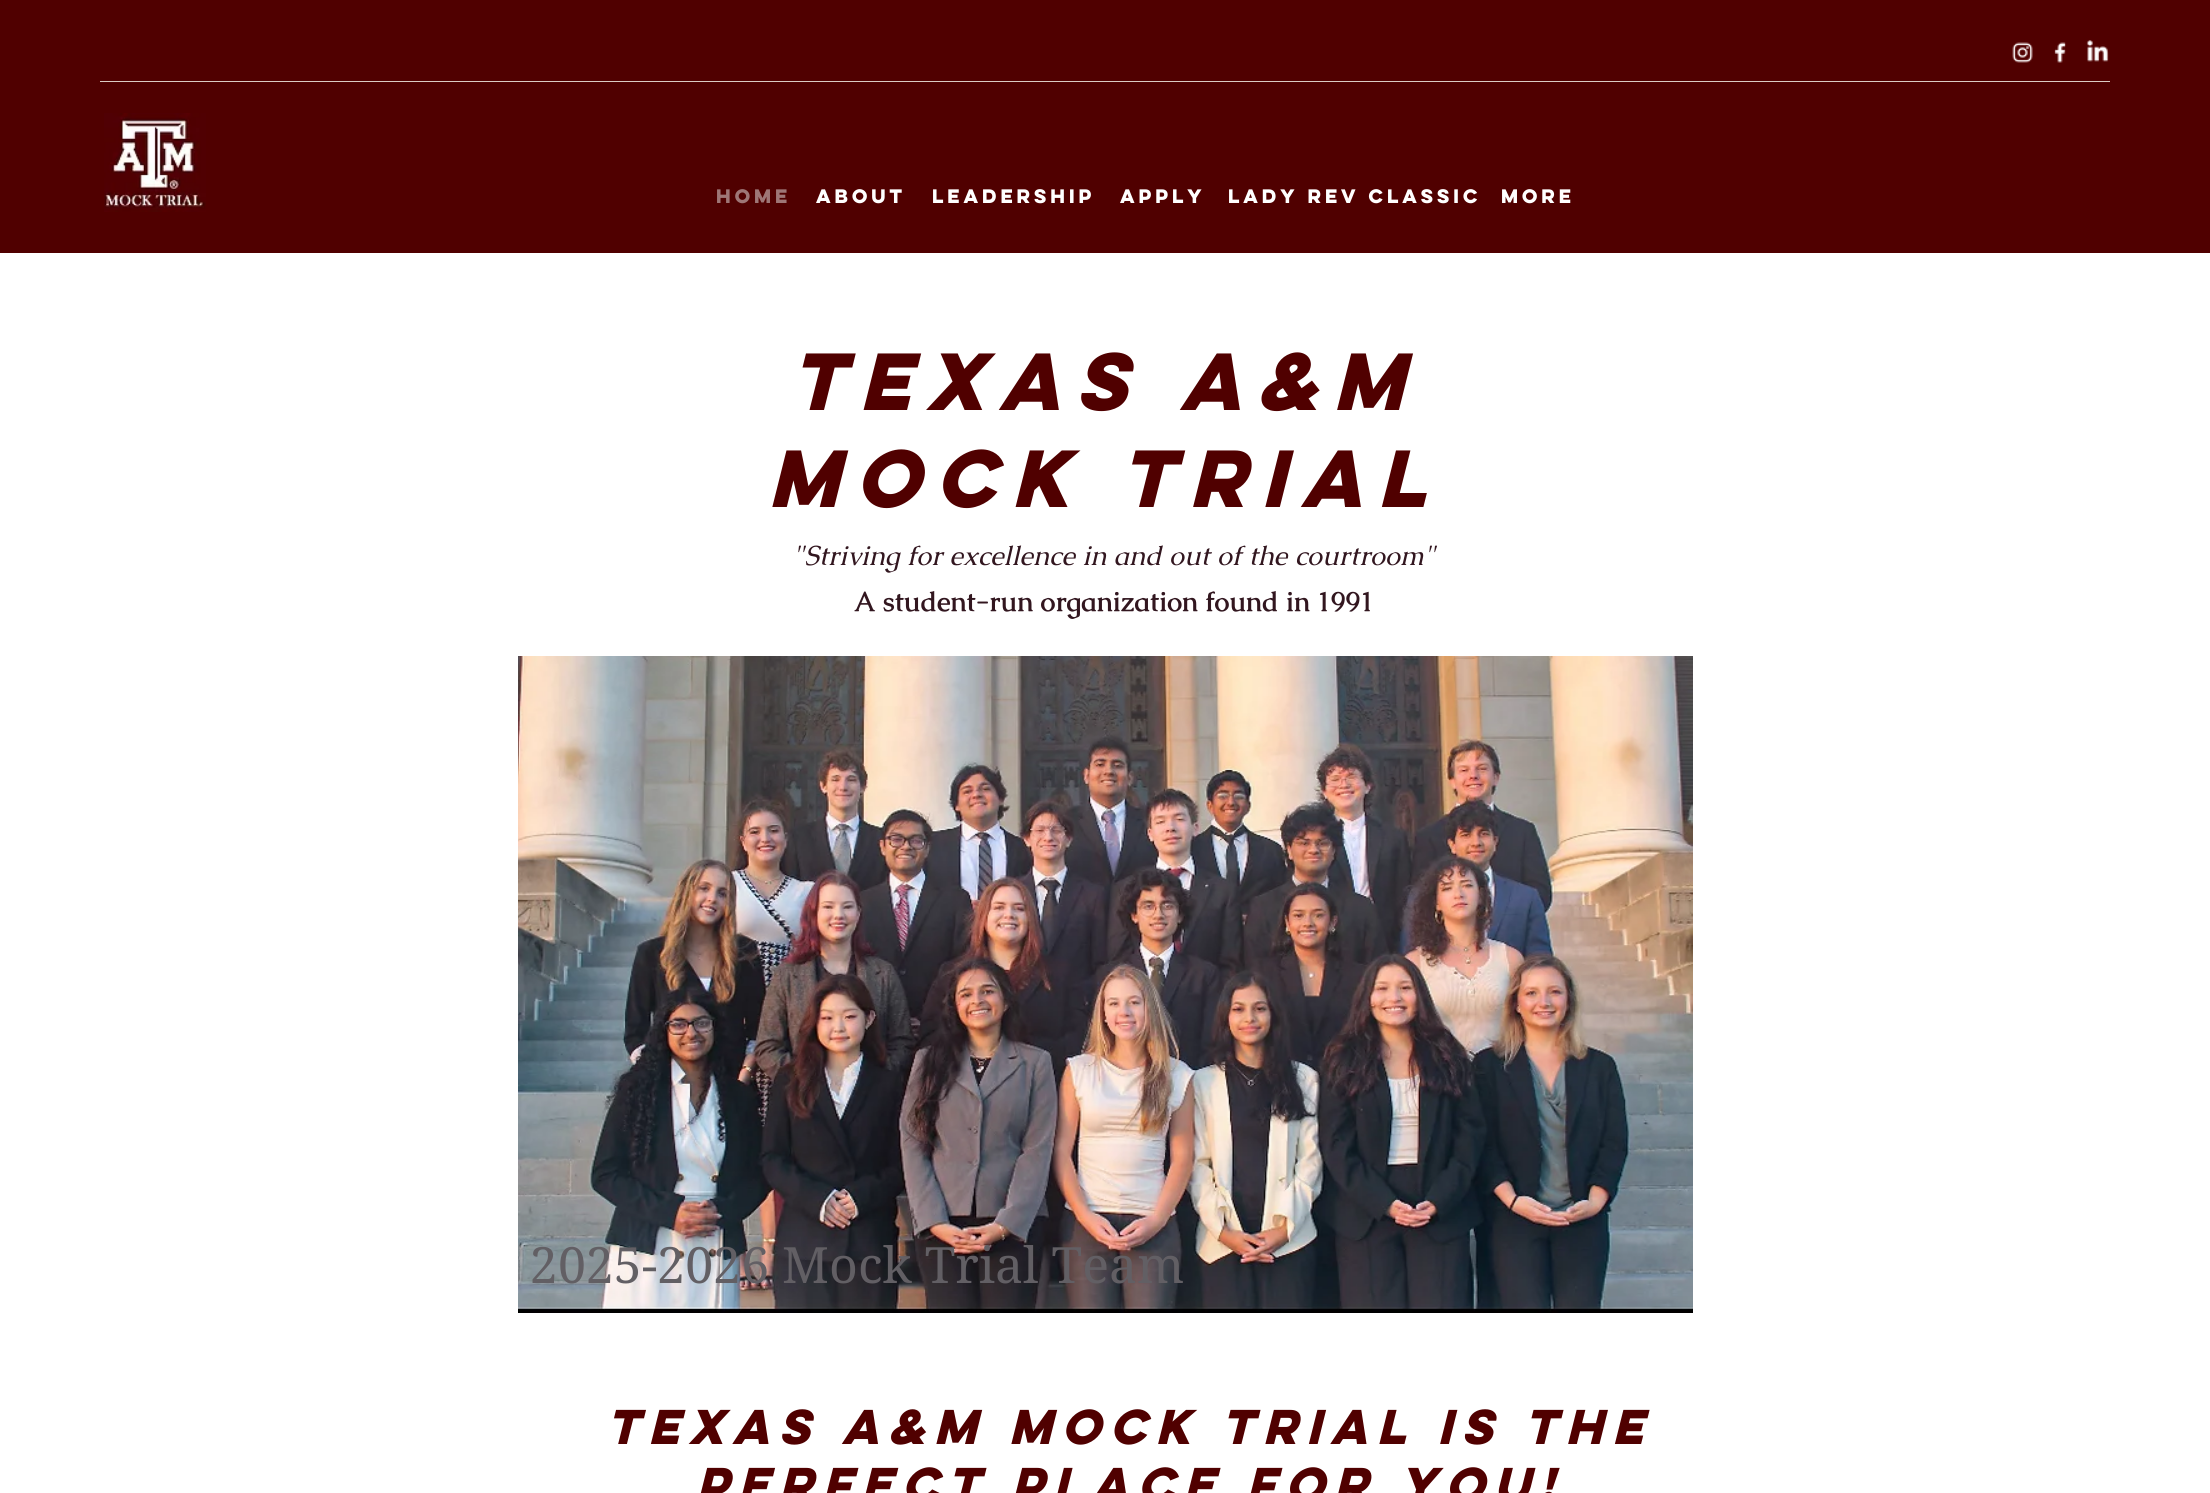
import math
import cairo

surface = cairo.ImageSurface(cairo.Format.RGB24, 2210, 1493)
ctx = cairo.Context(surface)
options = cairo.FontOptions()
options.set_hint_metrics(cairo.HintMetrics.OFF)
options.set_hint_style(cairo.HintStyle.NONE)
ctx.set_font_options(options)
ctx.set_miter_limit(4)


def ink(r, g, b):
    ctx.set_source_rgb(r / 255, g / 255, b / 255)


def write(x, y, s, family, size, color, bold=False, italic=False):
    ctx.select_font_face(family, cairo.FontSlant.ITALIC if italic else cairo.FontSlant.NORMAL, cairo.FontWeight.BOLD if bold else cairo.FontWeight.NORMAL)
    ctx.set_font_size(size)
    ink(*color)
    ctx.move_to(x, y)
    ctx.show_text(s)


def block(x, y, w, h, *color):
    ink(*color)
    ctx.rectangle(x, y, w, h)
    ctx.fill()


def paste(path, x, y, w, h):
    ctx.save()
    ctx.set_source_surface(cairo.ImageSurface.create_from_png(path), x, y)
    ctx.rectangle(x, y, w, h)
    ctx.fill()
    ctx.restore()


s1 = dict(family="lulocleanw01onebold", size=17.5, color=(158, 118, 118), bold=True)
s2 = dict(family="lulocleanw01onebold", size=17.5, color=(255, 255, 255), bold=True)
s3 = dict(family="lulocleanw01onebold", size=72.5, color=(80, 0, 0), bold=True, italic=True)
s4 = dict(family="Caudex", size=27.5, color=(50, 22, 31), italic=True)
s5 = dict(family="Caudex", size=27.5, color=(50, 22, 31), bold=True)
s6 = dict(family="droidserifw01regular", size=50, color=(98, 95, 100))
s7 = dict(family="lulocleanw01onebold", size=43.75, color=(80, 0, 0), bold=True, italic=True)

ink(255, 255, 255)
ctx.paint()
block(0, 0, 2210, 253, 80, 0, 0)
paste("pic1.png", 2012, 42, 21, 21)
paste("pic2.png", 2054, 42, 12, 21)
paste("pic3.png", 2086, 40, 23, 22)
block(100, 81, 2010, 1, 220, 203, 196)
paste("pic4.png", 104, 113, 102, 99)
write(716, 203, "Home", **s1)
write(816, 203, "About", **s2)
write(932, 203, "Leadership", **s2)
write(1120, 203, "Apply", **s2)
write(1228, 203, "Lady Rev Classic", **s2)
write(1501, 203, "More", **s2)
write(791, 410, "Texas A&M", **s3)
write(768, 507, "Mock Trial", **s3)
write(793, 565, "\"Striving for excellence in and out of the courtroom\"", **s4)
write(854, 611, "A student-run organization found in 1991", **s5)
paste("pic5.png", 518, 656, 1175, 657)
write(530, 1283, "2025-2026 Mock Trial Team", **s6)
write(607, 1444, "Texas A&M Mock Trial is the", **s7)
write(696, 1502, "perfect place for YOU!", **s7)
surface.write_to_png("screenshot.png")
